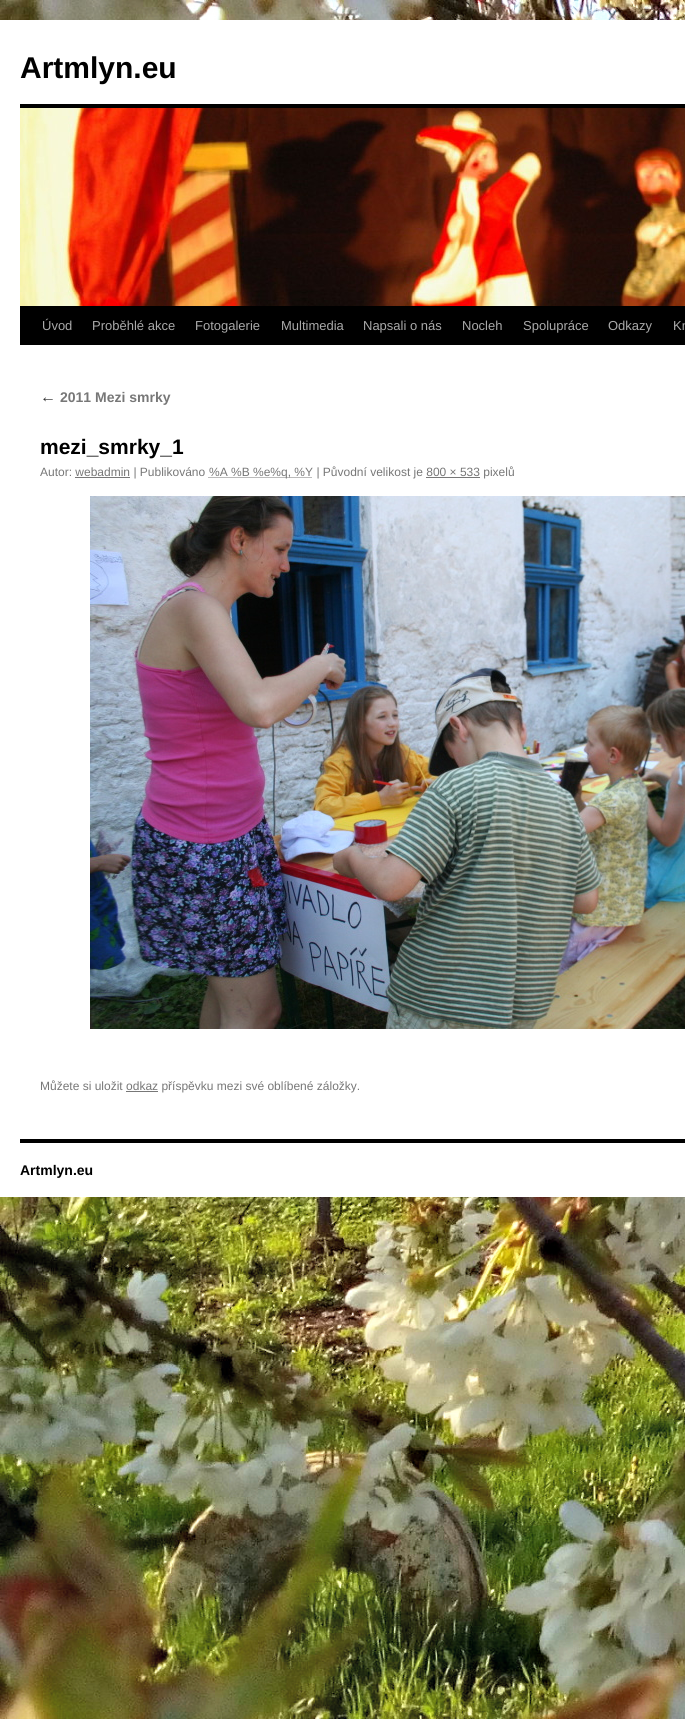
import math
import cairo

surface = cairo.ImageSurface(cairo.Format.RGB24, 685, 1719)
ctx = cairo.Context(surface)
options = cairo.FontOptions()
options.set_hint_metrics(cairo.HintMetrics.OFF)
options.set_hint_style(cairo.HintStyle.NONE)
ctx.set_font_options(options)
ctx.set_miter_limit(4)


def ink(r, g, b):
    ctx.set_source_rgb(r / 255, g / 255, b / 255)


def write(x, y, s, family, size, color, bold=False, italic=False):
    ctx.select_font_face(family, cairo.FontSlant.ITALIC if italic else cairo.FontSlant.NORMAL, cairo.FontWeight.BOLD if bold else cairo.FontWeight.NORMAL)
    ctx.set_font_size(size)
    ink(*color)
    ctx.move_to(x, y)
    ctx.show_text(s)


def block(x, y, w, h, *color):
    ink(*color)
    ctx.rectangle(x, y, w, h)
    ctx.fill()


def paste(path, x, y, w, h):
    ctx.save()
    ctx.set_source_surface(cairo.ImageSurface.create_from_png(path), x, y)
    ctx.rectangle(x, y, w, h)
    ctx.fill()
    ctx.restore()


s1 = dict(family="Liberation Sans", size=30, color=(0, 0, 0), bold=True)
s2 = dict(family="Liberation Sans", size=13, color=(170, 170, 170))
s3 = dict(family="Liberation Serif", size=16, color=(51, 51, 51), italic=True)
s4 = dict(family="Liberation Sans", size=14, color=(119, 119, 119), bold=True)
s5 = dict(family="Liberation Sans", size=21, color=(0, 0, 0), bold=True)
s6 = dict(family="Liberation Sans", size=12, color=(119, 119, 119))
s7 = dict(family="Liberation Sans", size=14, color=(0, 0, 0), bold=True)

ink(255, 255, 255)
ctx.paint()
paste("pic1.png", 0, 0, 685, 1719)
block(0, 20, 685, 1177, 255, 255, 255)
write(20, 78, "Artmlyn.eu", **s1)
block(20, 104, 665, 4, 0, 0, 0)
block(20, 306, 665, 39, 0, 0, 0)
paste("pic2.png", 20, 108, 665, 198)
write(42, 330, "Úvod", **s2)
write(92, 330, "Proběhlé akce", **s2)
write(195, 330, "Fotogalerie", **s2)
write(281, 330, "Multimedia", **s2)
write(363, 330, "Napsali o nás", **s2)
write(462, 330, "Nocleh", **s2)
write(523, 330, "Spolupráce", **s2)
write(608, 330, "Odkazy", **s2)
write(673, 330, "Kn", **s2)
write(40, 402, "←", **s3)
write(60, 402, "2011 Mezi smrky", **s4)
write(40, 454, "mezi_smrky_1", **s5)
write(40, 476, "Autor: webadmin | Publikováno", **s6)
ctx.new_path()
ctx.move_to(208.5, 477.5)
ctx.line_to(312.5, 477.5)
ctx.set_line_width(1)
ctx.set_dash([1, 1])
ctx.stroke()
write(209, 476, "%A %B %e%q, %Y | Původní velikost je 800 × 533 pixelů", **s6)
block(75, 477, 55, 1, 119, 119, 119)
block(426, 477, 54, 1, 119, 119, 119)
paste("pic3.png", 90, 496, 595, 533)
write(40, 1090, "Můžete si uložit odkaz příspěvku mezi své oblíbené záložky.", **s6)
block(126, 1091, 32, 1, 119, 119, 119)
block(20, 1139, 665, 4, 0, 0, 0)
write(20, 1175, "Artmlyn.eu", **s7)
surface.write_to_png("screenshot.png")
